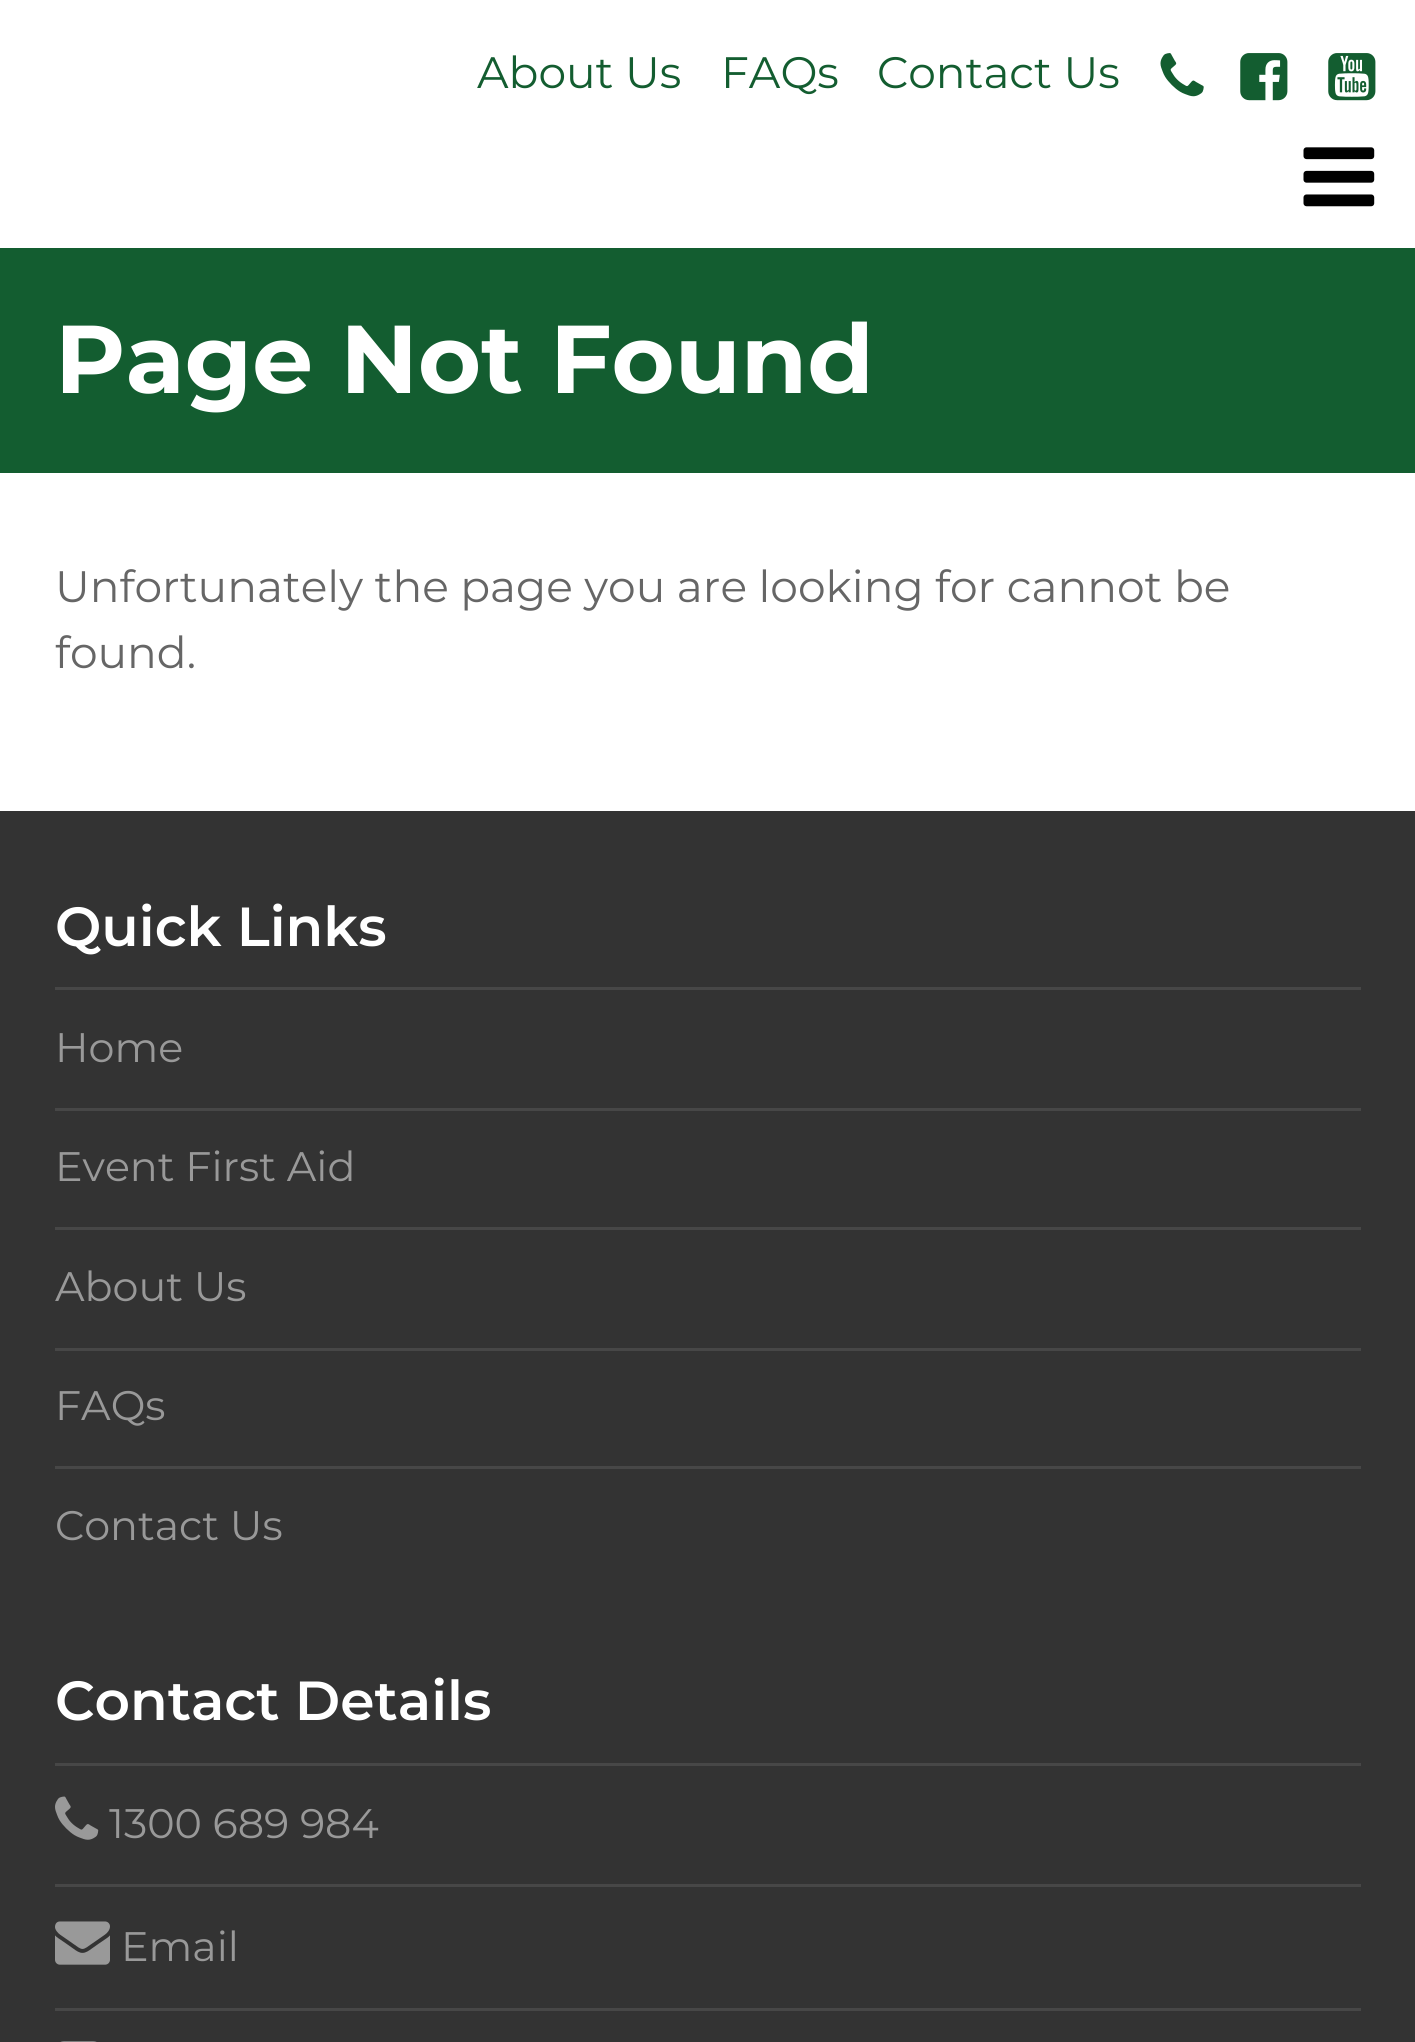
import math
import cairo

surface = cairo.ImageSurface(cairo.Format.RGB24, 1415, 2042)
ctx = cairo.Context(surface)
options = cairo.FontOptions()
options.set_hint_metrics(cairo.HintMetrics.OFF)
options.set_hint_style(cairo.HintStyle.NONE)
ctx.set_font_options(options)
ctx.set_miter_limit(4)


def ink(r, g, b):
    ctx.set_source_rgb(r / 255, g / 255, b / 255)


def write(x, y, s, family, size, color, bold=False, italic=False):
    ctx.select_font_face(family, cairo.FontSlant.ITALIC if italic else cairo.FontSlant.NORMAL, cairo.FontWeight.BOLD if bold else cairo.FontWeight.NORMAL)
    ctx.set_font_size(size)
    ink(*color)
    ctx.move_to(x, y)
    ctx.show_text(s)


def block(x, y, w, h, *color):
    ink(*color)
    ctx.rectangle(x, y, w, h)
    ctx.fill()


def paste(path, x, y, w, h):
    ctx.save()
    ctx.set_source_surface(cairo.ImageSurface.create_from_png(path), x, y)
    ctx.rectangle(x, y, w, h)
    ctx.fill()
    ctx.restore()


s1 = dict(family="Montserrat", size=44, color=(19, 93, 48))
s2 = dict(family="Montserrat", size=96.25, color=(255, 255, 255), bold=True)
s3 = dict(family="Montserrat", size=44, color=(102, 102, 102))
s4 = dict(family="Montserrat SemiBold", size=55, color=(255, 255, 255))
s5 = dict(family="Montserrat", size=41.25, color=(153, 153, 153))

ink(255, 255, 255)
ctx.paint()
write(477, 88, "About Us", **s1)
write(721, 88, "FAQs", **s1)
write(877, 88, "Contact Us", **s1)
paste("pic1.png", 1160, 53, 44, 44)
paste("pic2.png", 1240, 53, 48, 48)
paste("pic3.png", 1328, 53, 48, 48)
paste("pic4.png", 1303, 147, 72, 60)
block(0, 248, 1415, 225, 19, 93, 48)
write(55, 393, "Page Not Found", **s2)
write(55, 602, "Unfortunately the page you are looking for cannot be", **s3)
write(55, 668, "found.", **s3)
block(0, 811, 1415, 1231, 51, 51, 51)
write(55, 946, "Quick Links", **s4)
block(55, 987, 1306, 3, 71, 71, 71)
write(55, 1062, "Home", **s5)
block(55, 1108, 1306, 3, 71, 71, 71)
write(55, 1181, "Event First Aid", **s5)
block(55, 1227, 1306, 3, 71, 71, 71)
write(55, 1301, "About Us", **s5)
block(55, 1348, 1306, 3, 71, 71, 71)
write(55, 1420, "FAQs", **s5)
block(55, 1466, 1306, 3, 71, 71, 71)
write(55, 1540, "Contact Us", **s5)
write(55, 1720, "Contact Details", **s4)
block(55, 1763, 1306, 3, 71, 71, 71)
paste("pic5.png", 55, 1796, 44, 44)
write(109, 1838, "1300 689 984", **s5)
block(55, 1884, 1306, 3, 71, 71, 71)
paste("pic6.png", 55, 1921, 55, 44)
write(121, 1961, "Email", **s5)
block(55, 2008, 1306, 3, 71, 71, 71)
paste("pic7.png", 60, 2041, 37, 1)
surface.write_to_png("screenshot.png")
